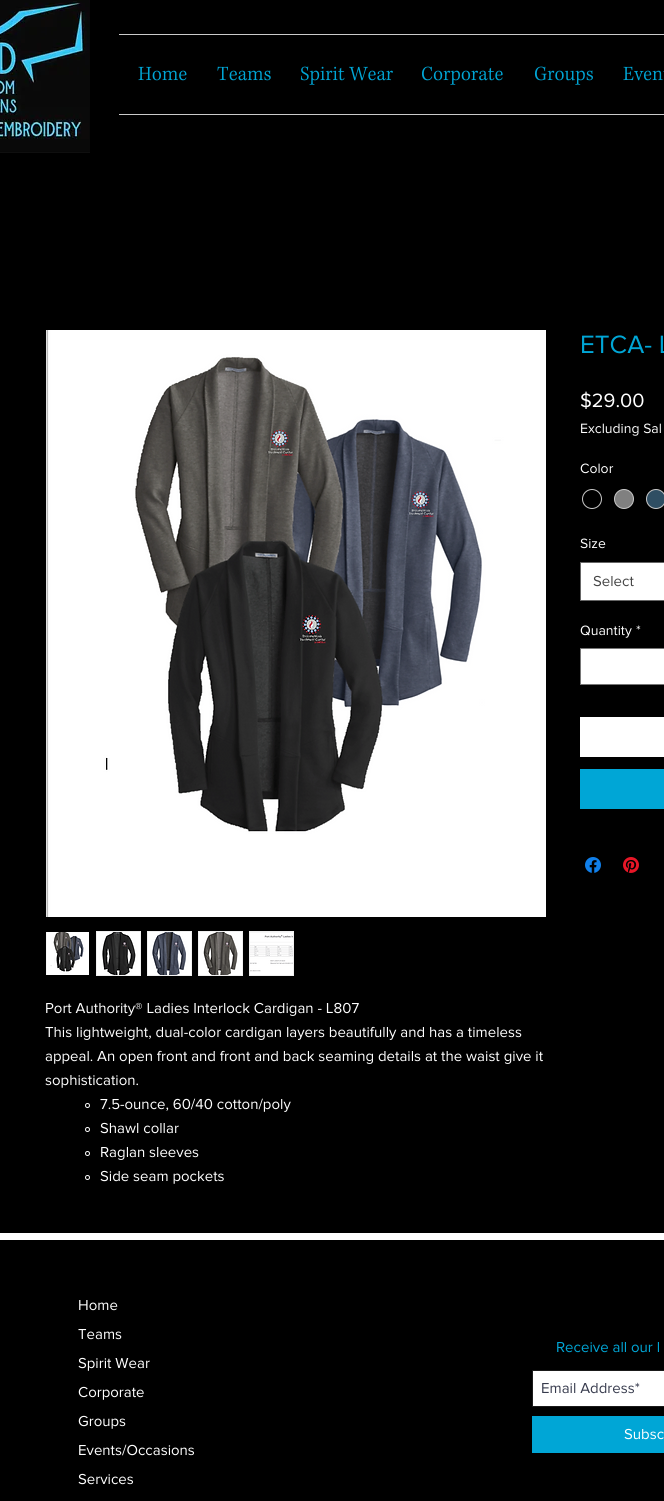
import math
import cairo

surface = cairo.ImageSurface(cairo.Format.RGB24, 664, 1501)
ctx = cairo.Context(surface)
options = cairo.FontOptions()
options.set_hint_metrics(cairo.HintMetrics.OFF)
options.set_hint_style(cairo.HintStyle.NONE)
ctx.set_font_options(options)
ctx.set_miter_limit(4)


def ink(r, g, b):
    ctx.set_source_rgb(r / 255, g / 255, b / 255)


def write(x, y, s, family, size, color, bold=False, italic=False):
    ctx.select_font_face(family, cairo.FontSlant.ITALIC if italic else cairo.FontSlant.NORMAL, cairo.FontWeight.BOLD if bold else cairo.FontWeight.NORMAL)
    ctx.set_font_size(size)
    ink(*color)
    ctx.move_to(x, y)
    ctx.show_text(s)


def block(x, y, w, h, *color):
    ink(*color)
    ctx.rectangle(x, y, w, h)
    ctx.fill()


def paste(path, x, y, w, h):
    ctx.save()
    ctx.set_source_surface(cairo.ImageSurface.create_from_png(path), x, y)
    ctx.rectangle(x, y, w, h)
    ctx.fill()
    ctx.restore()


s1 = dict(family="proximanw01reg", size=26, color=(0, 166, 214))
s2 = dict(family="proximanw01reg", size=20, color=(255, 255, 255))
s3 = dict(family="proximanw01reg", size=14, color=(255, 255, 255))
s4 = dict(family="proximanw01reg", size=15, color=(68, 68, 68))
s5 = dict(family="proximanw01reg", size=15, color=(255, 255, 255))
s6 = dict(family="proximanw01reg", size=15, color=(0, 166, 214))
s7 = dict(family="proximanw01reg", size=15, color=(55, 59, 77))

ink(0, 0, 0)
ctx.paint()
paste("pic1.png", 0, 0, 90, 153)
block(119, 34, 545, 1, 202, 202, 202)
block(119, 114, 545, 1, 202, 202, 202)
paste("pic2.png", 138, 66, 49, 15)
paste("pic3.png", 217, 66, 54, 15)
paste("pic4.png", 300, 66, 93, 19)
paste("pic5.png", 422, 66, 81, 19)
paste("pic6.png", 534, 66, 59, 19)
paste("pic7.png", 623, 66, 41, 15)
write(580, 353, "ETCA- L", **s1)
write(580, 407, "$29.00", **s2)
write(580, 433, "Excluding Sal", **s3)
write(580, 473, "Color", **s3)
ctx.new_path()
ctx.arc(592, 499, 9.5, 0, 2 * math.pi)
ink(201, 201, 201)
ctx.set_line_width(1)
ctx.stroke()
ink(128, 128, 128)
ctx.arc(624, 499, 9.5, 0, 2 * math.pi)
ctx.fill_preserve()
ink(201, 201, 201)
ctx.stroke()
ink(47, 78, 99)
ctx.arc(656, 499, 9.5, 0, 2 * math.pi)
ctx.fill_preserve()
ink(201, 201, 201)
ctx.stroke()
write(580, 548, "Size", **s3)
ctx.rectangle(580.5, 562.5, 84, 38)
ctx.fill_preserve()
ink(102, 102, 102)
ctx.stroke()
write(593, 586, "Select", **s4)
write(580, 635, "Quantity", **s3)
write(636, 635, "*", **s3)
ctx.rectangle(580.5, 648.5, 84, 36)
ctx.fill_preserve()
ink(118, 118, 118)
ctx.stroke()
block(580, 717, 84, 40, 255, 255, 255)
block(580, 769, 84, 40, 0, 166, 214)
paste("pic8.png", 585, 857, 16, 16)
paste("pic9.png", 623, 857, 16, 16)
paste("pic10.png", 46, 330, 500, 587)
paste("pic11.png", 46, 932, 43, 43)
ctx.rectangle(96.5, 931.5, 44, 44)
ink(240, 240, 240)
ctx.stroke()
paste("pic12.png", 97, 932, 43, 43)
ctx.rectangle(147.5, 931.5, 44, 44)
ctx.stroke()
paste("pic13.png", 148, 932, 43, 43)
ctx.rectangle(198.5, 931.5, 44, 44)
ctx.stroke()
paste("pic14.png", 199, 932, 43, 43)
ctx.rectangle(249.5, 931.5, 44, 44)
ctx.stroke()
paste("pic15.png", 250, 932, 43, 43)
write(45, 1013, "Port Authority® Ladies Interlock Cardigan - L807", **s5)
write(45, 1037, "This lightweight, dual-color cardigan layers beautifully and has a timeless", **s5)
write(45, 1061, "appeal. An open front and front and back seaming details at the waist give it", **s5)
write(45, 1085, "sophistication.", **s5)
ctx.new_path()
ctx.arc(87.5, 1105.5, 2, 0, 2 * math.pi)
ctx.stroke()
write(100, 1109, "7.5-ounce, 60/40 cotton/poly", **s5)
ctx.new_path()
ctx.arc(87.5, 1129.5, 2, 0, 2 * math.pi)
ctx.stroke()
write(100, 1133, "Shawl collar", **s5)
ctx.new_path()
ctx.arc(87.5, 1153.5, 2, 0, 2 * math.pi)
ctx.stroke()
write(100, 1157, "Raglan sleeves", **s5)
ctx.new_path()
ctx.arc(87.5, 1177.5, 2, 0, 2 * math.pi)
ctx.stroke()
write(100, 1181, "Side seam pockets", **s5)
block(0, 1233, 664, 7, 255, 255, 255)
write(78, 1310, "Home", **s5)
write(78, 1339, "Teams", **s5)
write(78, 1368, "Spirit Wear", **s5)
write(78, 1397, "Corporate", **s5)
write(78, 1426, "Groups", **s5)
write(78, 1455, "Events/Occasions", **s5)
write(78, 1484, "Services", **s5)
write(556, 1352, "Receive all our l", **s6)
ink(255, 255, 255)
ctx.rectangle(532.5, 1370.5, 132, 36)
ctx.fill_preserve()
ink(26, 26, 26)
ctx.stroke()
write(541, 1393, "Email Address*", **s7)
block(532, 1416, 132, 37, 0, 166, 214)
write(624, 1439, "Subsc", **s5)
surface.write_to_png("screenshot.png")
